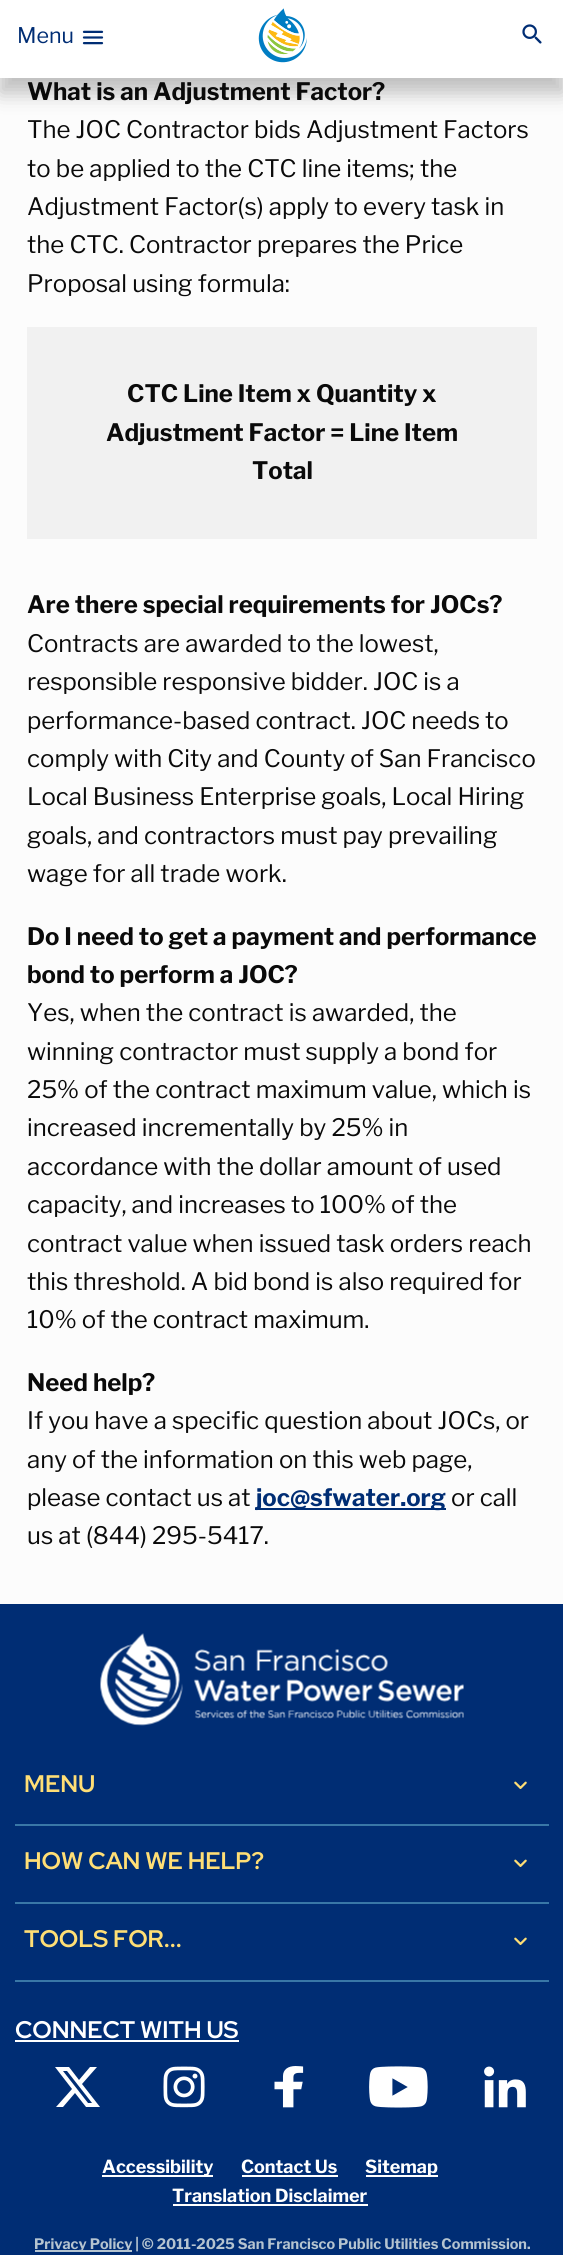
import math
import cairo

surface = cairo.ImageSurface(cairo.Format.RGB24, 563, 2255)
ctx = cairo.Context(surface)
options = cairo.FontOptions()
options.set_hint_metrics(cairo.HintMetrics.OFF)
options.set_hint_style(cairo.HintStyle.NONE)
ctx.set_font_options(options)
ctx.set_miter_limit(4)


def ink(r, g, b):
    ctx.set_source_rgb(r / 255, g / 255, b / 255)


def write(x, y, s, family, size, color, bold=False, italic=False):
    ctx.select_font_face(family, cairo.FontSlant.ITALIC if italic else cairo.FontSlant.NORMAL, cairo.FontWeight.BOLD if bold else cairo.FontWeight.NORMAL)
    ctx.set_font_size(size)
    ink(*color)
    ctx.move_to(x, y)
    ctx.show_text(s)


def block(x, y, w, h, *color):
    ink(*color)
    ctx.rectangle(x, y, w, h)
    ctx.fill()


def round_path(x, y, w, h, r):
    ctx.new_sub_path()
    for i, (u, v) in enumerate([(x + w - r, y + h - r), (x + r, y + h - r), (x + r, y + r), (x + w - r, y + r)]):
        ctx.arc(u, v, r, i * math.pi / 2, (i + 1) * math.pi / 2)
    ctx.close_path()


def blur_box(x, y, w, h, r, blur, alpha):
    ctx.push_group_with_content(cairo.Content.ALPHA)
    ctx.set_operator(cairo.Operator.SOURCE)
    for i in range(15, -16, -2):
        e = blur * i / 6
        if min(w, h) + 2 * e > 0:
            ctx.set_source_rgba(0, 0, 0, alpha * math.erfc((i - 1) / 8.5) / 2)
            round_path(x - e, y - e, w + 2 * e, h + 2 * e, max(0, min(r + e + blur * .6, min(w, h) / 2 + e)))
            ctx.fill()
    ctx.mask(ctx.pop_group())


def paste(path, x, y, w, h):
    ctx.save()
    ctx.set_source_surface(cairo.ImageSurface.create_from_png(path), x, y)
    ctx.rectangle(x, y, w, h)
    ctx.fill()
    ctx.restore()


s1 = dict(family="Libre Franklin", size=21.5, color=(0, 45, 116))
s2 = dict(family="Libre Franklin", size=24, color=(10, 10, 10), bold=True)
s3 = dict(family="Libre Franklin", size=24, color=(10, 10, 10))
s4 = dict(family="Libre Franklin", size=24, color=(0, 45, 116), bold=True)
s5 = dict(family="Red Hat Display", size=24, color=(255, 222, 117), bold=True)
s6 = dict(family="Red Hat Display", size=24, color=(255, 255, 255), bold=True)
s7 = dict(family="Libre Franklin", size=18, color=(255, 255, 255), bold=True)
s8 = dict(family="Libre Franklin", size=14.4, color=(181, 196, 208), bold=True)

ink(252, 252, 252)
ctx.paint()
ink(0, 0, 0)
blur_box(0, 15, 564, 78, 0, 10, 0.25)
block(0, 0, 563, 78, 255, 255, 255)
write(17, 43, "Menu", **s1)
paste("pic1.png", 82, 30, 22, 15)
paste("pic2.png", 522, 24, 20, 20)
paste("pic3.png", 258, 8, 49, 55)
write(27, 100, "What is an Adjustment Factor?", **s2)
write(27, 138, "The JOC Contractor bids Adjustment Factors", **s3)
write(27, 177, "to be applied to the CTC line items; the", **s3)
write(27, 215, "Adjustment Factor(s) apply to every task in", **s3)
write(27, 253, "the CTC. Contractor prepares the Price", **s3)
write(27, 292, "Proposal using formula:", **s3)
block(27, 327, 510, 212, 241, 241, 241)
write(127, 402, "CTC Line Item x Quantity x", **s2)
write(106, 441, "Adjustment Factor = Line Item", **s2)
write(252, 479, "Total", **s2)
write(27, 613, "Are there special requirements for JOCs?", **s2)
write(27, 652, "Contracts are awarded to the lowest,", **s3)
write(27, 690, "responsible responsive bidder. JOC is a", **s3)
write(27, 729, "performance-based contract. JOC needs to", **s3)
write(27, 767, "comply with City and County of San Francisco", **s3)
write(27, 805, "Local Business Enterprise goals, Local Hiring", **s3)
write(27, 844, "goals, and contractors must pay prevailing", **s3)
write(27, 882, "wage for all trade work.", **s3)
write(27, 945, "Do I need to get a payment and performance", **s2)
write(27, 983, "bond to perform a JOC?", **s2)
write(27, 1021, "Yes, when the contract is awarded, the", **s3)
write(27, 1060, "winning contractor must supply a bond for", **s3)
write(27, 1098, "25% of the contract maximum value, which is", **s3)
write(27, 1136, "increased incrementally by 25% in", **s3)
write(27, 1175, "accordance with the dollar amount of used", **s3)
write(27, 1213, "capacity, and increases to 100% of the", **s3)
write(27, 1252, "contract value when issued task orders reach", **s3)
write(27, 1290, "this threshold. A bid bond is also required for", **s3)
write(27, 1328, "10% of the contract maximum.", **s3)
write(27, 1391, "Need help?", **s2)
write(27, 1429, "If you have a specific question about JOCs, or", **s3)
write(27, 1468, "any of the information on this web page,", **s3)
write(27, 1506, "please contact us at", **s3)
block(255, 1508, 191, 2, 0, 45, 116)
write(256, 1506, "joc@sfwater.org", **s4)
write(451, 1506, "or call", **s3)
write(27, 1544, "us at (844) 295-5417.", **s3)
block(0, 1604, 563, 651, 0, 45, 116)
paste("pic4.png", 100, 1633, 364, 93)
block(15, 1824, 534, 2, 57, 119, 167)
write(24, 1792, "MENU", **s5)
paste("pic5.png", 514, 1781, 13, 8)
block(15, 1902, 534, 2, 57, 119, 167)
write(24, 1869, "HOW CAN WE HELP?", **s5)
paste("pic5.png", 514, 1859, 13, 8)
block(15, 1980, 534, 2, 57, 119, 167)
write(24, 1947, "TOOLS FOR...", **s5)
paste("pic5.png", 514, 1937, 13, 8)
write(15, 2038, "CONNECT WITH US", **s6)
block(15, 2040, 224, 2, 255, 255, 255)
ctx.new_path()
ctx.move_to(90, 2067)
ctx.line_to(97, 2067)
ctx.line_to(82, 2084)
ctx.line_to(100, 2107)
ctx.line_to(86, 2107)
ctx.line_to(75, 2093)
ctx.line_to(63, 2107)
ctx.line_to(56, 2107)
ctx.line_to(72, 2089)
ctx.line_to(55, 2067)
ctx.line_to(69, 2067)
ctx.line_to(79, 2080)
ctx.close_path()
ctx.move_to(88, 2103)
ctx.line_to(92, 2103)
ctx.line_to(67, 2071)
ctx.line_to(63, 2071)
ctx.close_path()
ctx.fill()
paste("pic6.png", 163, 2066, 42, 42)
paste("pic7.png", 274, 2066, 30, 42)
paste("pic8.png", 369, 2066, 59, 42)
paste("pic9.png", 484, 2066, 42, 42)
block(102, 2175, 111, 2, 255, 255, 255)
write(102, 2173, "Accessibility", **s7)
write(241, 2173, "Contact Us", **s7)
block(242, 2175, 96, 2, 255, 255, 255)
block(366, 2175, 72, 2, 255, 255, 255)
write(365, 2173, "Sitemap", **s7)
write(172, 2202, "Translation Disclaimer", **s7)
block(173, 2204, 195, 2, 255, 255, 255)
block(35, 2250, 97, 2, 181, 196, 208)
write(34, 2249, "Privacy Policy | © 2011-2025 San Francisco Public Utilities Commission.", **s8)
surface.write_to_png("screenshot.png")
